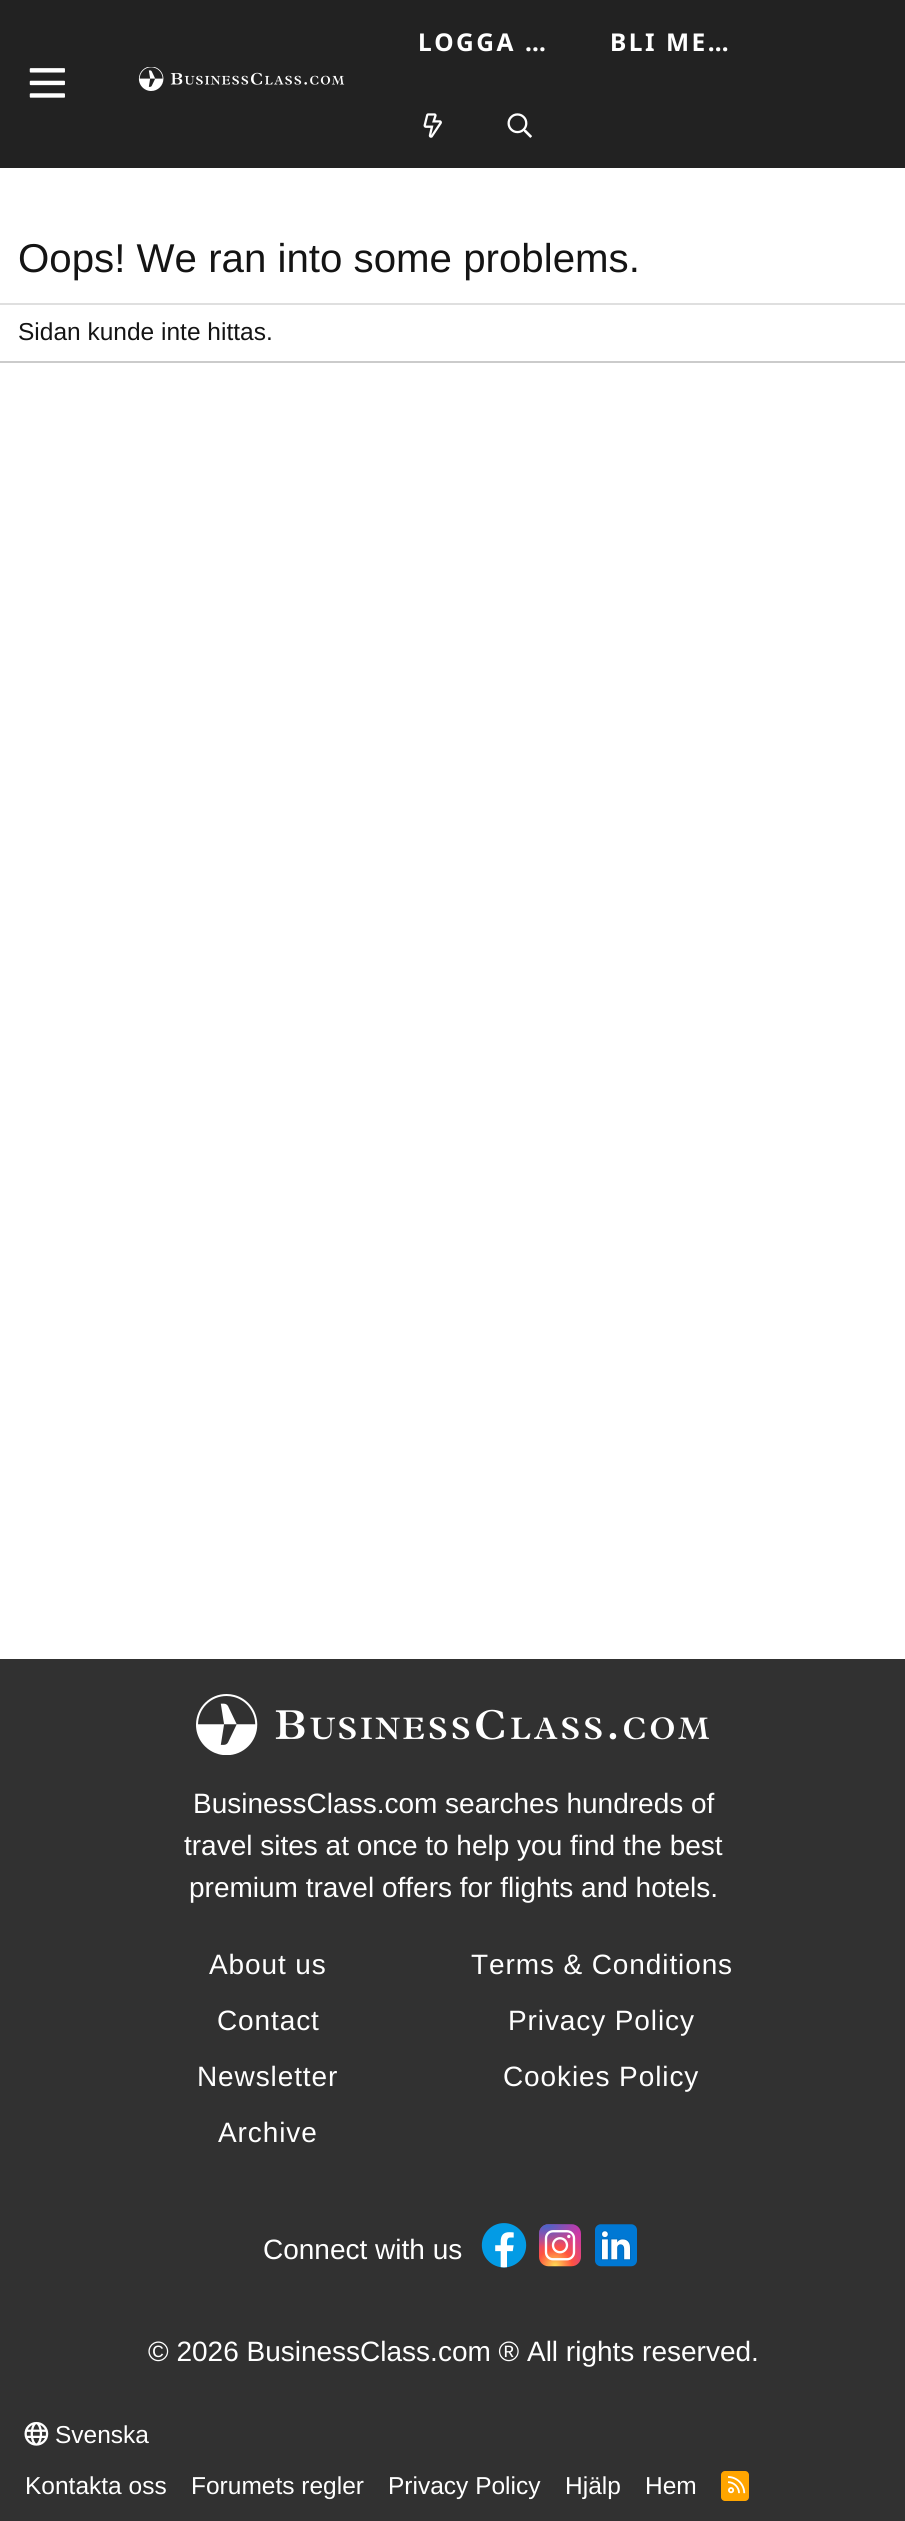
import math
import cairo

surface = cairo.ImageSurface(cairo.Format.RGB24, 905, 2521)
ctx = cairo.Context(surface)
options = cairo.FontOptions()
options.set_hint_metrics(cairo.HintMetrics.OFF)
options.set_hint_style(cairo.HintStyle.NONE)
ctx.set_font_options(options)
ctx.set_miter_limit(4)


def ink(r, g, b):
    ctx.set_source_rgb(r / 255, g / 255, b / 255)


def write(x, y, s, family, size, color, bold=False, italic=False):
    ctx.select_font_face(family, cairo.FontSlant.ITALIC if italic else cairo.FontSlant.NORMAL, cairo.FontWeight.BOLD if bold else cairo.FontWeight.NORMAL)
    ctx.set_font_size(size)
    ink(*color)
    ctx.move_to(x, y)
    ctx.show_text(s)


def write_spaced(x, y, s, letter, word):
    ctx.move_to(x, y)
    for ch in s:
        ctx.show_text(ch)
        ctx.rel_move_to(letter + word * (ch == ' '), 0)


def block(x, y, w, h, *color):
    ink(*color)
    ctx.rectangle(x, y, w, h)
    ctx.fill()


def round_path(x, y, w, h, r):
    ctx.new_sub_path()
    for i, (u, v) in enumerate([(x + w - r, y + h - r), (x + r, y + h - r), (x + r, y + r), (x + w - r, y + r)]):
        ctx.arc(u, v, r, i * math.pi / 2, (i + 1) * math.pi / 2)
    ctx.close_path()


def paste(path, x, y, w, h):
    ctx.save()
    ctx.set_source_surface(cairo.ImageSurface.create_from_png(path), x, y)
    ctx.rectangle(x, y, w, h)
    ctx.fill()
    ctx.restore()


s1 = dict(family="Liberation Sans", size=40.25, color=(20, 20, 20))
s2 = dict(family="Liberation Sans", size=24.5, color=(20, 20, 20))
s3 = dict(family="Liberation Sans", size=28, color=(255, 255, 255))
s4 = dict(family="Liberation Sans", size=24.5, color=(255, 255, 255))

ink(255, 255, 255)
ctx.paint()
block(0, 0, 905, 168, 34, 34, 34)
ctx.select_font_face("Noto Sans", cairo.FontSlant.NORMAL, cairo.FontWeight.BOLD)
ctx.set_font_size(24.5)
ink(255, 255, 255)
write_spaced(418, 51, "LOGGA …", 2.5, 0)
write_spaced(610, 51, "BLI ME…", 2.5, 0)
paste("pic1.png", 423, 113, 19, 25)
paste("pic2.png", 507, 113, 25, 25)
paste("pic3.png", 29, 68, 36, 30)
paste("pic4.png", 138, 67, 207, 24)
write(18, 272, "Oops! We ran into some problems.", **s1)
block(0, 303, 905, 2, 223, 223, 223)
block(0, 361, 905, 2, 203, 203, 203)
write(18, 340, "Sidan kunde inte hittas.", **s2)
block(0, 1659, 905, 862, 49, 49, 49)
paste("pic5.png", 196, 1694, 513, 61)
write(193, 1813, "BusinessClass.com searches hundreds of", **s3)
write(184, 1855, "travel sites at once to help you find the best", **s3)
write(189, 1897, "premium travel offers for flights and hotels.", **s3)
write_spaced(209, 1974, "About us", 0.9, 0)
write_spaced(217, 2030, "Contact", 0.9, 0)
write_spaced(197, 2086, "Newsletter", 0.9, 0)
write_spaced(218, 2142, "Archive", 0.9, 0)
write_spaced(471, 1974, "Terms & Conditions", 0.9, 0)
write_spaced(508, 2030, "Privacy Policy", 0.9, 0)
write_spaced(503, 2086, "Cookies Policy", 0.9, 0)
write(263, 2259, "Connect with us", **s3)
paste("pic6.png", 481, 2223, 46, 45)
paste("pic7.png", 539, 2224, 42, 43)
paste("pic8.png", 595, 2224, 42, 43)
write(148, 2361, "© 2026 BusinessClass.com ® All rights reserved.", **s3)
paste("pic9.png", 24, 2421, 25, 25)
write(55, 2443, "Svenska", **s4)
write(25, 2494, "Kontakta oss", **s4)
write(191, 2494, "Forumets regler", **s4)
write(388, 2494, "Privacy Policy", **s4)
write(565, 2494, "Hjälp", **s4)
write(645, 2494, "Hem", **s4)
ink(255, 165, 0)
round_path(721, 2471, 28, 30, 4)
ctx.fill()
paste("pic10.png", 728, 2476, 18, 18)
surface.write_to_png("screenshot.png")
